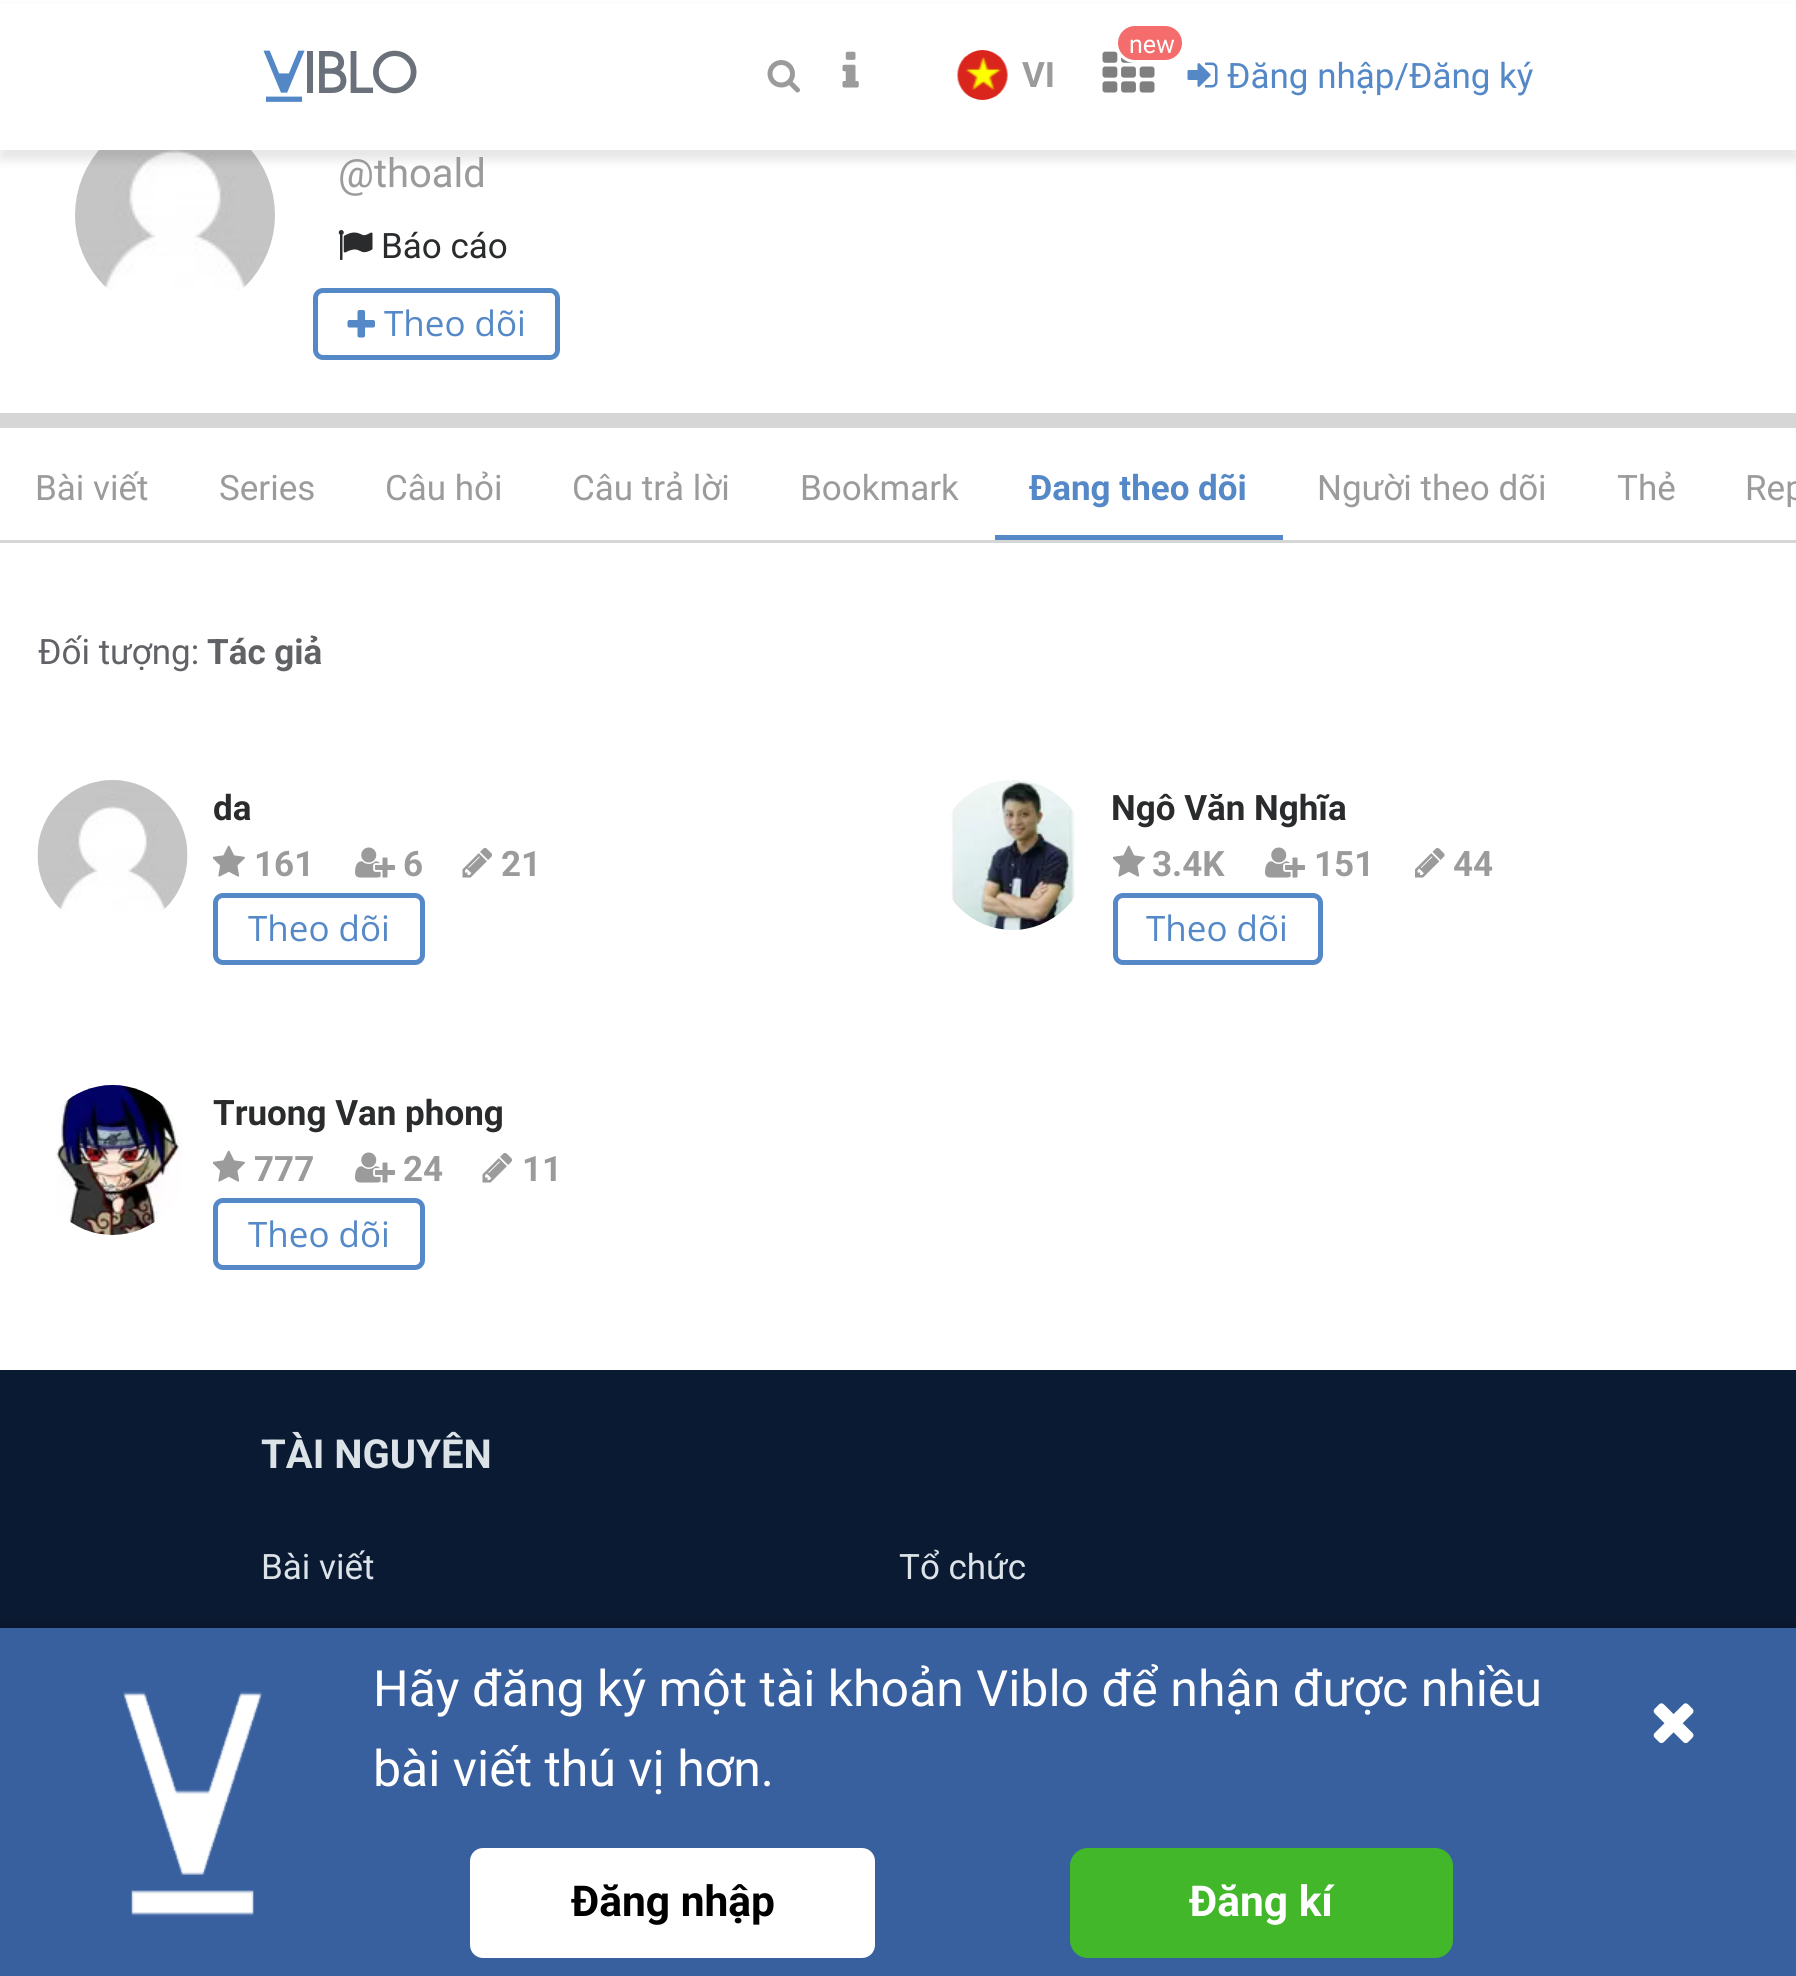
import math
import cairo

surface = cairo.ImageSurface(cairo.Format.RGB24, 1796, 1976)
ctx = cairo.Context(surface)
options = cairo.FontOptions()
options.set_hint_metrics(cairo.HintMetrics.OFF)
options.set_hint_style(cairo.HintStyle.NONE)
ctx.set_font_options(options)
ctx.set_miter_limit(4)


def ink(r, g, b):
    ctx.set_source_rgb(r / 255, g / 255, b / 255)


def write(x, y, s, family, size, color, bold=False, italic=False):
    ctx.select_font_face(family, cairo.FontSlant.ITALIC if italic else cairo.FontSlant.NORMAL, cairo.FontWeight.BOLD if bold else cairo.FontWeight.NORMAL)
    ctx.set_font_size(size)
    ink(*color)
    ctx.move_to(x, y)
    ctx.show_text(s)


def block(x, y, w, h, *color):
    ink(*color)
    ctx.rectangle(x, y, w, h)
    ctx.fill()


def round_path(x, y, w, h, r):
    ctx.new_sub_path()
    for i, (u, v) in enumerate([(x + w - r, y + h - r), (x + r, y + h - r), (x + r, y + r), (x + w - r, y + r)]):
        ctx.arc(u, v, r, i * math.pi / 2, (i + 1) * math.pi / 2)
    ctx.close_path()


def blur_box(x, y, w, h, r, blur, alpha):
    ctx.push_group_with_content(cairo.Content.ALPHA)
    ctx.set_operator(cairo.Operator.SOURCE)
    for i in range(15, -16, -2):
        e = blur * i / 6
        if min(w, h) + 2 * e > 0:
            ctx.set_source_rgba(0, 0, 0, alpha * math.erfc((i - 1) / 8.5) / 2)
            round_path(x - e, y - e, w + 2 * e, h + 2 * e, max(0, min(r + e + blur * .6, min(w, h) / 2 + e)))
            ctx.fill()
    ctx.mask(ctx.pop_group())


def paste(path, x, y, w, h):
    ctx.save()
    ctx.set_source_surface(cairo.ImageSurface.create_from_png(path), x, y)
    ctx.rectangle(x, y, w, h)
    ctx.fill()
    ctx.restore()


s1 = dict(family="Roboto", size=25, color=(255, 255, 255))
s2 = dict(family="Roboto", size=35, color=(155, 155, 155), bold=True)
s3 = dict(family="Roboto", size=35, color=(84, 136, 199))
s4 = dict(family="Roboto", size=40, color=(155, 155, 155))
s5 = dict(family="Roboto", size=35, color=(41, 43, 44))
s6 = dict(family="Open Sans", size=35, color=(84, 136, 199))
s7 = dict(family="Roboto", size=35, color=(155, 155, 155))
s8 = dict(family="Roboto", size=35, color=(84, 136, 199), bold=True)
s9 = dict(family="Roboto", size=35, color=(96, 98, 102))
s10 = dict(family="Roboto", size=35, color=(96, 98, 102), bold=True)
s11 = dict(family="Roboto", size=35, color=(41, 43, 44), bold=True)
s12 = dict(family="Roboto", size=40, color=(219, 227, 232), bold=True)
s13 = dict(family="Roboto", size=35, color=(219, 227, 232))
s14 = dict(family="Roboto", size=50, color=(255, 255, 255))
s15 = dict(family="Roboto", size=42.5, color=(0, 0, 0), bold=True)
s16 = dict(family="Roboto", size=42.5, color=(255, 255, 255), bold=True)

ink(255, 255, 255)
ctx.paint()
paste("pic7.png", 75, 150, 200, 140)
ink(0, 0, 0)
blur_box(0, 10, 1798, 150, 0, 5, 0.1)
block(0, 4, 1796, 146, 255, 255, 255)
paste("pic1.png", 263, 50, 154, 52)
paste("pic2.png", 767, 60, 33, 33)
paste("pic3.png", 842, 51, 17, 37)
paste("pic4.png", 1102, 51, 53, 42)
ink(245, 108, 108)
round_path(1116.5, 24.5, 67, 37, 18.5)
ctx.fill_preserve()
ink(255, 255, 255)
ctx.set_line_width(3)
ctx.stroke()
write(1129, 53, "new", **s1)
paste("pic5.png", 957, 50, 51, 50)
write(1022, 87, "VI", **s2)
paste("pic6.png", 1187, 62, 31, 26)
write(1227, 88, "Đăng nhập/Đăng ký", **s3)
write(338, 187, "@thoald", **s4)
paste("pic8.png", 338, 230, 35, 30)
write(381, 258, "Báo cáo", **s5)
round_path(315.5, 290.5, 242, 67, 7.5)
ink(84, 136, 199)
ctx.set_line_width(5)
ctx.stroke()
paste("pic9.png", 347, 310, 28, 28)
write(384, 336, "Theo dõi", **s6)
block(0, 413, 1796, 15, 214, 214, 215)
block(0, 540, 1796, 3, 214, 214, 215)
write(35, 500, "Bài viết", **s7)
write(219, 500, "Series", **s7)
write(385, 500, "Câu hỏi", **s7)
write(572, 500, "Câu trả lời", **s7)
write(800, 500, "Bookmark", **s7)
block(995, 535, 288, 5, 84, 136, 199)
write(1029, 500, "Đang theo dõi", **s8)
write(1317, 500, "Người theo dõi", **s7)
write(1617, 500, "Thẻ", **s7)
write(1745, 500, "Rep", **s7)
write(38, 664, "Đối tượng:", **s9)
write(207, 664, "Tác giả", **s10)
paste("pic10.png", 37, 780, 151, 131)
write(213, 820, "da", **s11)
paste("pic11.png", 213, 845, 32, 32)
write(254, 876, "161", **s2)
paste("pic12.png", 355, 847, 40, 31)
write(403, 876, "6", **s2)
paste("pic13.png", 462, 848, 30, 30)
write(501, 876, "21", **s2)
round_path(215.5, 895.5, 207, 67, 7.5)
ink(84, 136, 199)
ctx.stroke()
write(248, 941, "Theo dõi", **s6)
paste("pic14.png", 949, 780, 126, 150)
write(1111, 820, "Ngô Văn Nghĩa", **s11)
paste("pic11.png", 1113, 845, 32, 32)
write(1152, 876, "3.4K", **s2)
paste("pic12.png", 1265, 847, 40, 31)
write(1314, 876, "151", **s2)
paste("pic15.png", 1415, 848, 30, 30)
write(1453, 876, "44", **s2)
round_path(1115.5, 895.5, 205, 67, 7.5)
ink(84, 136, 199)
ctx.stroke()
write(1146, 941, "Theo dõi", **s6)
paste("pic16.png", 55, 1085, 127, 150)
write(213, 1125, "Truong Van phong", **s11)
paste("pic11.png", 213, 1150, 32, 32)
write(254, 1181, "777", **s2)
paste("pic12.png", 355, 1152, 40, 31)
write(403, 1181, "24", **s2)
paste("pic13.png", 482, 1153, 30, 30)
write(522, 1181, "11", **s2)
round_path(215.5, 1200.5, 207, 67, 7.5)
ink(84, 136, 199)
ctx.stroke()
write(248, 1247, "Theo dõi", **s6)
block(0, 1370, 1796, 258, 11, 26, 51)
write(261, 1468, "TÀI NGUYÊN", **s12)
write(261, 1579, "Bài viết", **s13)
write(899, 1579, "Tổ chức", **s13)
ink(0, 0, 0)
blur_box(-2, 1623, 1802, 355, 0, 6, 0.15)
block(0, 1628, 1796, 348, 57, 96, 158)
paste("pic17.png", 123, 1691, 139, 225)
write(373, 1706, "Hãy đăng ký một tài khoản Viblo để nhận được nhiều", **s14)
write(373, 1786, "bài viết thú vị hơn.", **s14)
round_path(470, 1848, 405, 110, 13)
ctx.fill()
write(571, 1916, "Đăng nhập", **s15)
ink(66, 183, 42)
round_path(1070, 1848, 383, 110, 18)
ctx.fill()
write(1189, 1916, "Đăng kí", **s16)
paste("pic18.png", 1653, 1703, 41, 41)
surface.write_to_png("screenshot.png")
